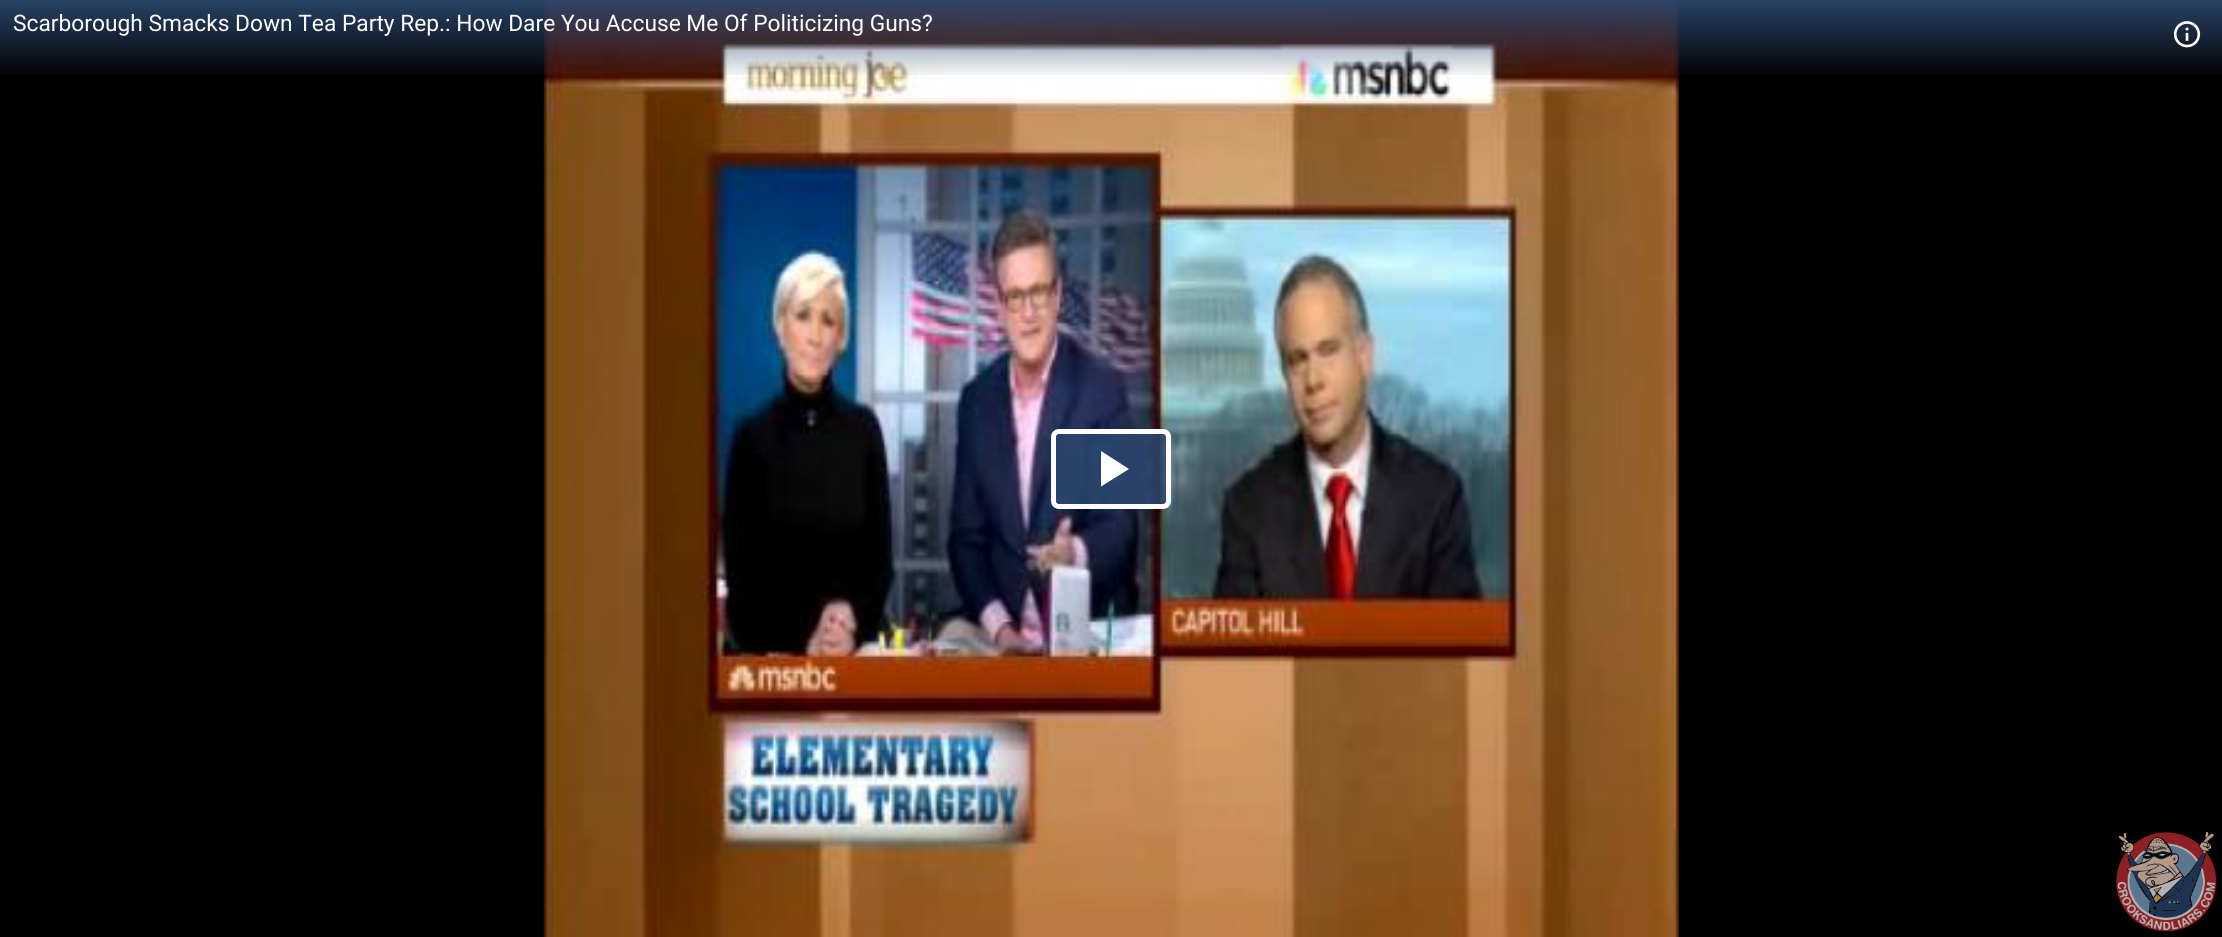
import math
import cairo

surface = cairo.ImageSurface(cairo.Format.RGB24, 2222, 937)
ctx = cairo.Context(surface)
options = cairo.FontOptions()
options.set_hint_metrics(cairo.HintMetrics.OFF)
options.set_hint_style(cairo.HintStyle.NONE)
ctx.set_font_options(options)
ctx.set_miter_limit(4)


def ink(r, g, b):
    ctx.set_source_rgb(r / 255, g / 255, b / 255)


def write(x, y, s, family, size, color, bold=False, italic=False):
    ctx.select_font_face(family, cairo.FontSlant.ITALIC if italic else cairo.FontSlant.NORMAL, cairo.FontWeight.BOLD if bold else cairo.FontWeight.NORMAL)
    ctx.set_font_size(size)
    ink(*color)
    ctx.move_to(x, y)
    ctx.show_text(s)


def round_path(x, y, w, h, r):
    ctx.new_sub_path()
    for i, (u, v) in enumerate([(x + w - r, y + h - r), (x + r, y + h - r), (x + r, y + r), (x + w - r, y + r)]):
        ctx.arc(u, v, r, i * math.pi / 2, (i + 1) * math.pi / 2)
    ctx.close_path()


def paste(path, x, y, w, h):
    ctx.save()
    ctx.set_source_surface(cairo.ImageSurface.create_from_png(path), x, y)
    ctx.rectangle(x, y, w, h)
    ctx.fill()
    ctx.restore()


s1 = dict(family="Roboto", size=22.75, color=(255, 255, 255))

ink(0, 0, 0)
ctx.paint()
paste("pic2.png", 543, 0, 1136, 937)
gradient = cairo.LinearGradient(1111, 0, 1111, 75)
gradient.add_color_stop_rgba(0.01, 0.173, 0.286, 0.443, 0.9)
gradient.add_color_stop_rgba(1, 0.173, 0.286, 0.443, 0.05)
ctx.set_source(gradient)
ctx.rectangle(0, 0, 2222, 75)
ctx.fill()
write(13, 31, "Scarborough Smacks Down Tea Party Rep.: How Dare You Accuse Me Of Politicizing Guns?", **s1)
paste("pic1.png", 2173, 21, 28, 27)
ctx.set_source_rgba(0.173, 0.286, 0.443, 0.8)
round_path(1053.5, 431.5, 115, 75, 5.5)
ctx.fill_preserve()
ink(255, 255, 255)
ctx.set_line_width(5)
ctx.stroke()
ctx.new_path()
ctx.move_to(1101, 451)
ctx.line_to(1101, 486.5)
ctx.line_to(1129, 469)
ctx.close_path()
ctx.fill()
paste("pic3.png", 2116, 831, 101, 101)
surface.write_to_png("screenshot.png")
